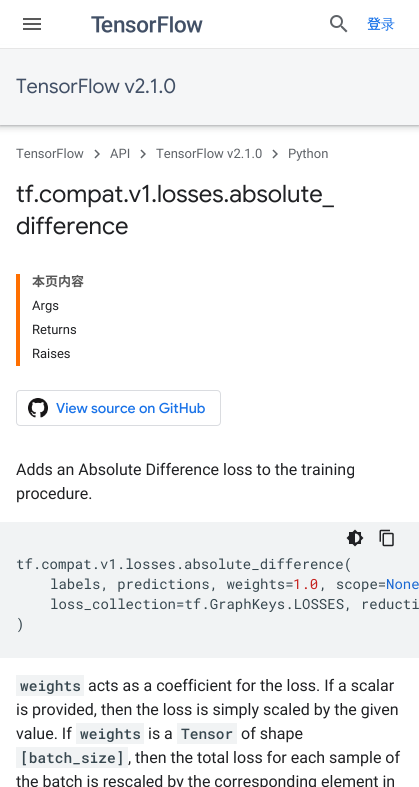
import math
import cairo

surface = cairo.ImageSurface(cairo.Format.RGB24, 419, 787)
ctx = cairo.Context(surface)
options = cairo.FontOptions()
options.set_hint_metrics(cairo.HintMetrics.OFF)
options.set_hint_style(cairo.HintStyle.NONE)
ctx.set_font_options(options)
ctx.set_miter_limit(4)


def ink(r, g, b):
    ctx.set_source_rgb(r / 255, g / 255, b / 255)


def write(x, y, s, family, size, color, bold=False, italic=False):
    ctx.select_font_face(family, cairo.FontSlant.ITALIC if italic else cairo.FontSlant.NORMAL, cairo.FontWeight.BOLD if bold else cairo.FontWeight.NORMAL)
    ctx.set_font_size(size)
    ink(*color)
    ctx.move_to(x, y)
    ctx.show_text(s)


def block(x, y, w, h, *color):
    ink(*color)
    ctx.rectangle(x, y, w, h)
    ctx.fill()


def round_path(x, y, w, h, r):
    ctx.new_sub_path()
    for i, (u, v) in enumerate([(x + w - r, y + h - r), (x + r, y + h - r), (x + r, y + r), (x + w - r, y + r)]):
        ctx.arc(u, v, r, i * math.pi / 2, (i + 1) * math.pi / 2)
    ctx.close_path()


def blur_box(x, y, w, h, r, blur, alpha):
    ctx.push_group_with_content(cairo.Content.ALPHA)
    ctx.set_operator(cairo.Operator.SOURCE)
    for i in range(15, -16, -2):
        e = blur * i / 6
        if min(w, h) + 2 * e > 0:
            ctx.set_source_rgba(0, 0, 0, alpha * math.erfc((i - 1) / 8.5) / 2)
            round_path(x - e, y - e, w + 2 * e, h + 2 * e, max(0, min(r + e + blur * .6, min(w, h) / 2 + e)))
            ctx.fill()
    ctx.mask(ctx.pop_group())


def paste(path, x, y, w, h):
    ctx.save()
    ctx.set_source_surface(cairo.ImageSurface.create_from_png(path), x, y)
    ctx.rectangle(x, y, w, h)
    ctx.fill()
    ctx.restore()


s1 = dict(family="Noto Sans JP Medium", size=14, color=(26, 115, 232))
s2 = dict(family="WenQuanYi Zen Hei Medium", size=14, color=(26, 115, 232))
s3 = dict(family="Google Sans", size=20, color=(66, 80, 102))
s4 = dict(family="Roboto", size=13, color=(95, 99, 104))
s5 = dict(family="Google Sans", size=24, color=(32, 33, 36))
s6 = dict(family="Noto Sans JP", size=13, color=(89, 89, 89), bold=True)
s7 = dict(family="Roboto", size=13, color=(32, 33, 36))
s8 = dict(family="Google Sans Medium", size=14, color=(26, 115, 232))
s9 = dict(family="Roboto", size=16, color=(32, 33, 36))
s10 = dict(family="Roboto Mono", size=14, color=(55, 71, 79))
s11 = dict(family="Roboto Mono", size=14, color=(197, 34, 31))
s12 = dict(family="Roboto Mono", size=14, color=(25, 103, 210))
s13 = dict(family="Roboto Mono Medium", size=14.5, color=(55, 71, 79))

ink(255, 255, 255)
ctx.paint()
ink(60, 64, 67)
blur_box(-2, 49, 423, 80, 0, 3, 0.15)
blur_box(0, 50, 419, 76, 0, 1, 0.3)
block(0, 45, 419, 3, 255, 255, 255)
block(0, 48, 419, 1, 230, 230, 230)
paste("pic1.png", 23, 18, 18, 12)
paste("pic2.png", 91, 16, 112, 17)
paste("pic3.png", 330, 15, 18, 18)
write(367, 29, "登", **s1)
write(381, 29, "录", **s2)
block(0, 49, 419, 76, 245, 246, 247)
write(16, 93, "TensorFlow v2.1.0", **s3)
write(16, 158, "TensorFlow", **s4)
paste("pic4.png", 94, 149, 6, 10)
write(110, 158, "API", **s4)
paste("pic4.png", 140, 149, 6, 10)
write(156, 158, "TensorFlow v2.1.0", **s4)
paste("pic4.png", 272, 149, 6, 10)
write(288, 158, "Python", **s4)
write(16, 202, "tf.compat.v1.losses.absolute_", **s5)
write(16, 234, "difference", **s5)
block(16, 274, 4, 92, 255, 111, 0)
write(32, 286, "本页内容", **s6)
write(32, 310, "Args", **s7)
write(32, 334, "Returns", **s7)
write(32, 358, "Raises", **s7)
round_path(16.5, 390.5, 204, 35, 3.5)
ink(218, 220, 224)
ctx.set_line_width(1)
ctx.stroke()
paste("pic5.png", 28, 398, 20, 20)
write(56, 413, "View source on GitHub", **s8)
write(16, 475, "Adds an Absolute Difference loss to the training", **s9)
write(16, 499, "procedure.", **s9)
block(0, 522, 419, 136, 241, 243, 244)
paste("pic6.png", 346, 529, 18, 18)
paste("pic7.png", 379, 529, 15, 18)
write(16, 569, "tf.compat.v1.losses.absolute_difference(", **s10)
write(50, 589, "labels, predictions, weights=", **s10)
write(293, 589, "1.0", **s11)
write(319, 589, ", scope=", **s10)
write(386, 589, "None", **s12)
write(50, 609, "loss_collection=tf.GraphKeys.LOSSES, reducti", **s10)
write(16, 629, ")", **s10)
block(16, 675, 68, 21, 241, 243, 244)
write(20, 691, "weights", **s13)
write(88, 691, "acts as a coefficient for the loss. If a scalar", **s9)
write(16, 715, "is provided, then the loss is simply scaled by the given", **s9)
write(16, 739, "value. If", **s9)
block(76, 723, 68, 21, 241, 243, 244)
write(80, 739, "weights", **s13)
write(148, 739, "is a", **s9)
block(177, 723, 60, 21, 241, 243, 244)
write(181, 739, "Tensor", **s13)
write(241, 739, "of shape", **s9)
block(16, 747, 112, 21, 241, 243, 244)
write(20, 763, "[batch_size]", **s13)
write(128, 763, ", then the total loss for each sample of", **s9)
write(16, 787, "the batch is rescaled by the corresponding element in", **s9)
surface.write_to_png("screenshot.png")
